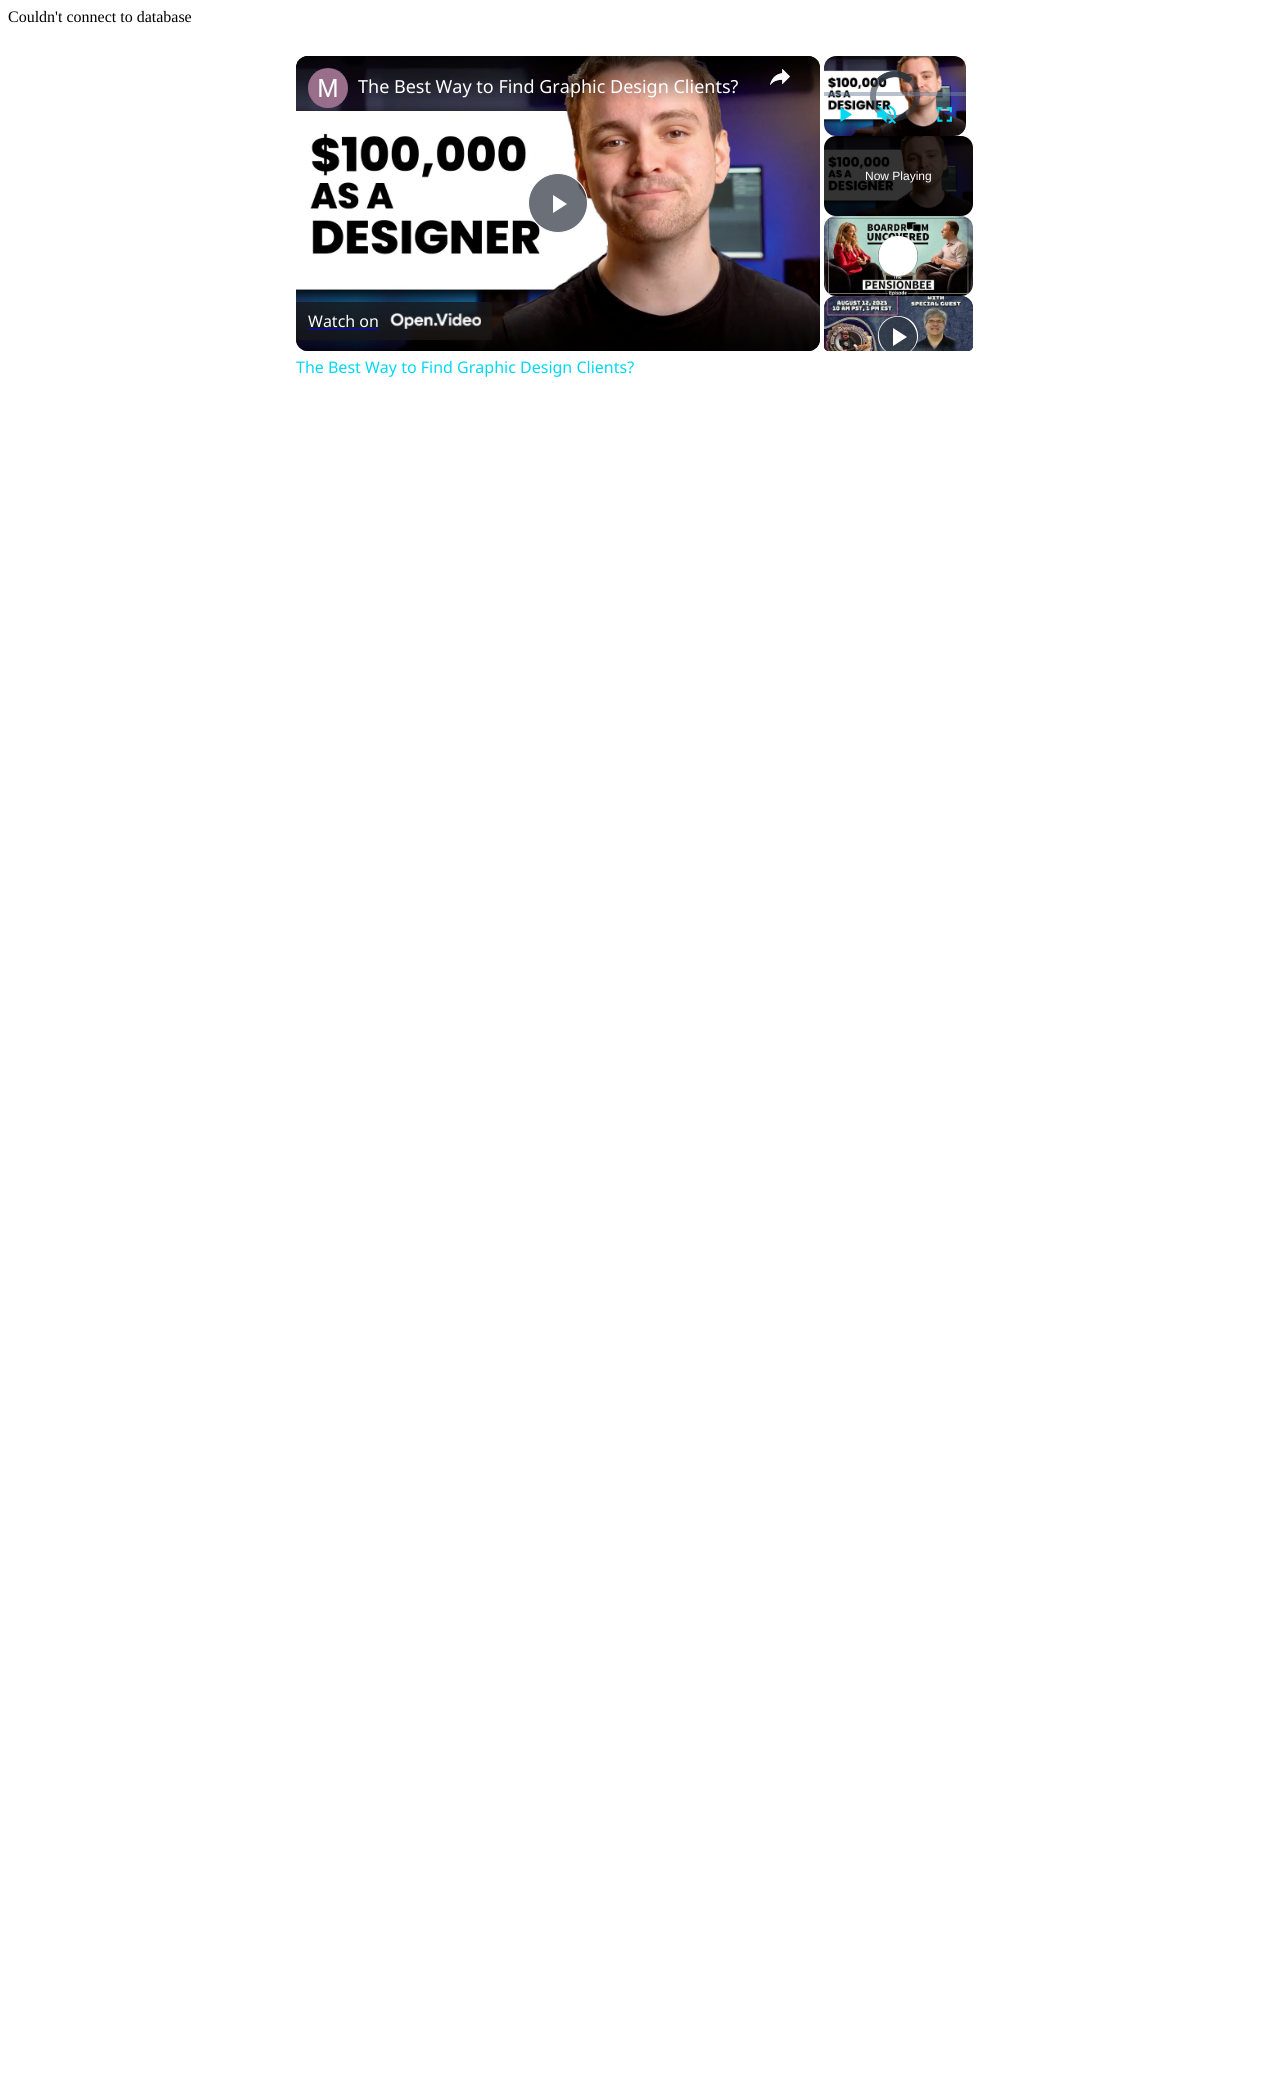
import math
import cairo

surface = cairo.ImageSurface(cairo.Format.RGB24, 1268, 2097)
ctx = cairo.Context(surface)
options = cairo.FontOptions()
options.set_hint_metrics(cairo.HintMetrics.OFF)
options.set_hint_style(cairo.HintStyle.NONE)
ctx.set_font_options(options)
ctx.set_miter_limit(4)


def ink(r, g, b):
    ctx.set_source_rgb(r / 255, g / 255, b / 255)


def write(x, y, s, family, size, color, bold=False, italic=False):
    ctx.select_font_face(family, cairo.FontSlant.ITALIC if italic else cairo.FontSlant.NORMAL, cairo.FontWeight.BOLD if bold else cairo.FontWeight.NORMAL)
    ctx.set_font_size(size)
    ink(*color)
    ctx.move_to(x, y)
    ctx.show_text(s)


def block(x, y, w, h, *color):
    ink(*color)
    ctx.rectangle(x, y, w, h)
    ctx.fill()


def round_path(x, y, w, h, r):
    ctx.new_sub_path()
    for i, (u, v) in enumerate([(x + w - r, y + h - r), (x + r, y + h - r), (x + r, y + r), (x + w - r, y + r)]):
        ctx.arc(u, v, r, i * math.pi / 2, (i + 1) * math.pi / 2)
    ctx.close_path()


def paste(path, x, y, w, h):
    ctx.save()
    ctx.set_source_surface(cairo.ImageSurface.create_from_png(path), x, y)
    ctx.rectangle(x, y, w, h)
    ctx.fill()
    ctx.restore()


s1 = dict(family="Liberation Serif", size=16, color=(0, 0, 0))
s2 = dict(family="Noto Sans", size=18, color=(255, 255, 255))
s3 = dict(family="Noto Sans", size=16, color=(255, 255, 255))
s4 = dict(family="Liberation Sans", size=12, color=(255, 255, 255))
s5 = dict(family="Noto Sans", size=16, color=(3, 216, 243))

ink(255, 255, 255)
ctx.paint()
write(8, 22, "Couldn't connect to database", **s1)
paste("pic1.png", 296, 56, 524, 295)
paste("pic2.png", 296, 56, 524, 295)
ctx.set_source_rgba(0.169, 0.2, 0.247, 0.7)
ctx.arc(558, 203, 29.5, 0, 2 * math.pi)
ctx.fill_preserve()
ink(255, 255, 255)
ctx.set_line_width(1)
ctx.stroke()
ctx.new_path()
ctx.move_to(553, 195)
ctx.line_to(553, 213)
ctx.line_to(567, 204)
ctx.close_path()
ctx.fill()
gradient = cairo.LinearGradient(558, 56, 558, 351)
gradient.add_color_stop_rgba(0, 0, 0, 0, 0.6)
gradient.add_color_stop_rgba(0.16, 0, 0, 0, 0)
gradient.add_color_stop_rgba(0.84, 0, 0, 0, 0)
gradient.add_color_stop_rgba(1, 0, 0, 0, 0.8)
ctx.set_source(gradient)
round_path(296, 56, 524, 295, 12)
ctx.fill()
paste("pic3.png", 308, 68, 40, 40)
paste("pic4.png", 770, 68, 20, 18)
write(358, 93, "The Best Way to Find Graphic Design Clients?", **s2)
ctx.set_source_rgba(0.09, 0.09, 0.09, 0.8)
ctx.new_path()
ctx.move_to(296, 302)
ctx.line_to(490, 302)
ctx.curve_to(491, 302, 492, 303, 492, 304)
ctx.line_to(492, 338)
ctx.curve_to(492, 339, 491, 340, 490, 340)
ctx.line_to(296, 340)
ctx.close_path()
ctx.fill()
write(308, 327, "Watch on", **s3)
block(308, 328, 70, 1, 0, 0, 238)
paste("pic5.png", 390, 313, 91, 16)
paste("pic6.png", 824, 56, 142, 80)
ctx.arc(895, 96, 22, 0, 2 * math.pi)
ctx.set_source_rgba(0.169, 0.2, 0.247, 0.59)
ctx.set_line_width(6)
ctx.stroke()
ctx.new_path()
ctx.move_to(879.5, 80.5)
ctx.curve_to(888, 72, 902, 72, 910.5, 80.5)
ctx.stroke()
ctx.new_path()
ctx.move_to(879.5, 80.5)
ctx.curve_to(888, 72, 902, 72, 910.5, 80.5)
ctx.stroke()
ctx.set_source_rgba(0.451, 0.522, 0.624, 0.5)
ctx.rectangle(824, 92, 142, 4)
ctx.fill()
ink(3, 216, 243)
ctx.new_path()
ctx.move_to(840.5, 107)
ctx.line_to(840.5, 122)
ctx.line_to(852, 114.5)
ctx.close_path()
ctx.fill()
paste("pic7.png", 877, 105, 20, 19)
paste("pic8.png", 937, 107, 15, 15)
ink(0, 0, 0)
round_path(824, 136, 149, 80, 12)
ctx.fill()
paste("pic9.png", 824, 136, 149, 80)
write(865, 180, "Now Playing", **s4)
paste("pic10.png", 824, 216, 149, 80)
ctx.set_source_rgba(0.169, 0.2, 0.247, 0.7)
ctx.arc(898, 256, 20, 0, 2 * math.pi)
ctx.fill()
ink(255, 255, 255)
ctx.new_path()
ctx.move_to(898, 236)
ctx.curve_to(872, 236, 872, 276, 898, 276)
ctx.curve_to(924, 276, 924, 236, 898, 236)
ctx.close_path()
ctx.fill()
ctx.save()
round_path(820, 56, 153, 295, 5)
ctx.clip()
ink(0, 0, 0)
ctx.new_path()
ctx.move_to(836, 296)
ctx.line_to(961, 296)
ctx.curve_to(967.5, 296, 973, 301.5, 973, 308)
ctx.line_to(973, 346)
ctx.curve_to(973, 349, 971, 351, 968, 351)
ctx.line_to(829, 351)
ctx.curve_to(826, 351, 824, 349, 824, 346)
ctx.line_to(824, 308)
ctx.curve_to(824, 301.5, 829.5, 296, 836, 296)
ctx.close_path()
ctx.fill()
ctx.restore()
paste("pic11.png", 824, 296, 149, 55)
ctx.save()
ctx.rectangle(824, 136, 149, 215)
ctx.clip()
ctx.set_source_rgba(0.169, 0.2, 0.247, 0.7)
ctx.arc(898, 336, 20, 0, 2 * math.pi)
ctx.fill()
ctx.restore()
ctx.new_path()
ctx.move_to(898, 316)
ctx.curve_to(917, 316, 925, 339, 911, 351)
ctx.line_to(910, 351)
ctx.curve_to(928, 336, 908, 307, 887, 320)
ctx.curve_to(883, 323, 880, 327, 879, 332)
ctx.curve_to(878, 339, 881, 347, 886, 351)
ctx.line_to(885, 351)
ctx.curve_to(871, 339, 879, 316, 898, 316)
ctx.close_path()
ctx.fill()
ctx.new_path()
ctx.move_to(893, 328)
ctx.line_to(893, 346)
ctx.line_to(907, 337)
ctx.close_path()
ctx.fill()
write(296, 373, "The Best Way to Find Graphic Design Clients?", **s5)
surface.write_to_png("screenshot.png")
